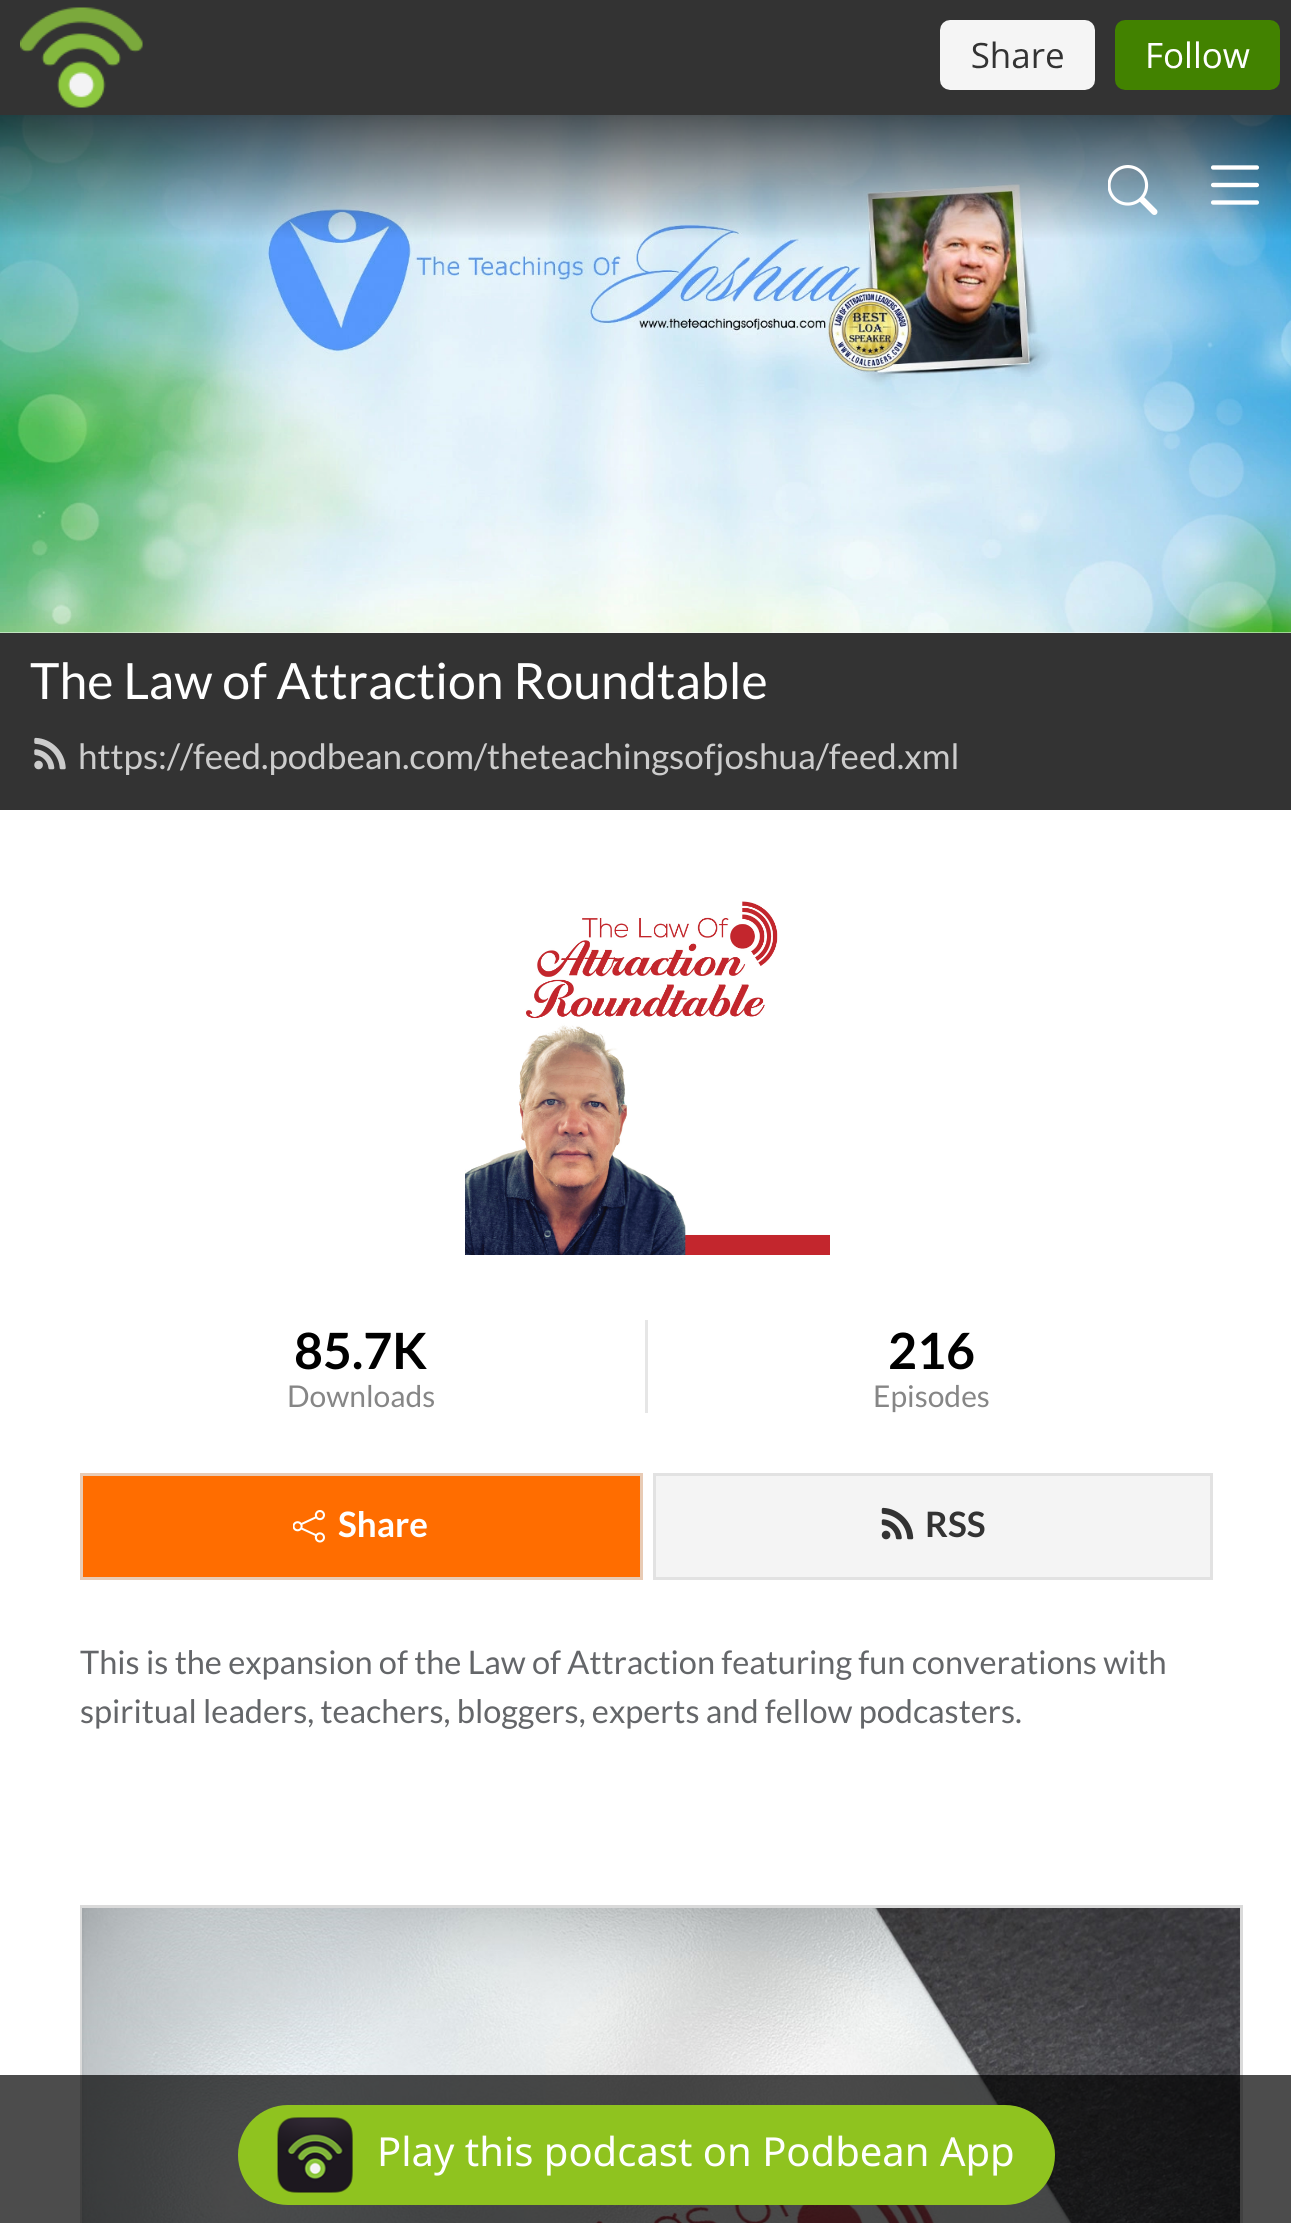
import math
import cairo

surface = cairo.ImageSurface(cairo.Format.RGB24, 1291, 2223)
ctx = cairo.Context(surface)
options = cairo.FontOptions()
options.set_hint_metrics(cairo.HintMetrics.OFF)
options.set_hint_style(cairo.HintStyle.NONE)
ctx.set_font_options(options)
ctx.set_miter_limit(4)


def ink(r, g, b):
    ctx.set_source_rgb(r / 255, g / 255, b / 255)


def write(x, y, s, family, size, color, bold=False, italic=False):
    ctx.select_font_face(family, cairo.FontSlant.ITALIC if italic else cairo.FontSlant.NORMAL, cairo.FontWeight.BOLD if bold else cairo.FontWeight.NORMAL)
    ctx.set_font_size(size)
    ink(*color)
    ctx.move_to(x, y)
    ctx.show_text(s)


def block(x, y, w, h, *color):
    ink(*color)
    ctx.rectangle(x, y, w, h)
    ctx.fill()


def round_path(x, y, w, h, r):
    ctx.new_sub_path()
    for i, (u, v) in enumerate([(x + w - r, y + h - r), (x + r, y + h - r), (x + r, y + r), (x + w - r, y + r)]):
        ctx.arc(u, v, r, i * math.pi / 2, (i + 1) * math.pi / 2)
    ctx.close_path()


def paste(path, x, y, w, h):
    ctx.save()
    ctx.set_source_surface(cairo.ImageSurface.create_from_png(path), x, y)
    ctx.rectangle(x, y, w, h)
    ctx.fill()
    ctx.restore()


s1 = dict(family="Lato", size=50, color=(255, 255, 255))
s2 = dict(family="Lato", size=35, color=(204, 204, 204))
s3 = dict(family="Lato", size=50, color=(0, 0, 0), bold=True)
s4 = dict(family="Lato", size=30, color=(134, 134, 134))
s5 = dict(family="Lato", size=35, color=(255, 255, 255), bold=True)
s6 = dict(family="Lato", size=35, color=(51, 51, 51), bold=True)
s7 = dict(family="Lato", size=32.5, color=(100, 102, 105))
s8 = dict(family="Noto Sans", size=40, color=(255, 255, 255))

ink(255, 255, 255)
ctx.paint()
block(0, 0, 1291, 115, 51, 51, 51)
paste("pic1.png", 20, 7, 1260, 101)
paste("pic4.png", 0, 115, 1291, 518)
paste("pic2.png", 1108, 165, 50, 50)
paste("pic3.png", 1211, 165, 48, 40)
block(0, 633, 1291, 177, 51, 51, 51)
write(30, 699, "The Law of Attraction Roundtable", **s1)
paste("pic5.png", 34, 737, 32, 33)
write(78, 769, "https://feed.podbean.com/theteachingsofjoshua/feed.xml", **s2)
paste("pic6.png", 465, 901, 365, 354)
write(294, 1369, "85.7K", **s3)
write(287, 1407, "Downloads", **s4)
block(645, 1320, 3, 93, 230, 230, 230)
write(888, 1369, "216", **s3)
write(873, 1407, "Episodes", **s4)
ink(255, 109, 0)
ctx.rectangle(81.5, 1474.5, 560, 104)
ctx.fill_preserve()
ink(232, 203, 181)
ctx.set_line_width(3)
ctx.stroke()
paste("pic7.png", 293, 1510, 32, 33)
write(338, 1537, "Share", **s5)
ink(244, 244, 244)
ctx.rectangle(654.5, 1474.5, 557, 104)
ctx.fill_preserve()
ink(226, 226, 226)
ctx.stroke()
paste("pic8.png", 881, 1507, 33, 33)
write(925, 1537, "RSS", **s6)
write(80, 1674, "This is the expansion of the Law of Attraction featuring fun converations with", **s7)
write(80, 1723, "spiritual leaders, teachers, bloggers, experts and fellow podcasters.", **s7)
ctx.rectangle(81.5, 1906.5, 1160, 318)
ink(218, 218, 218)
ctx.stroke()
paste("pic9.png", 82, 1908, 1158, 315)
ctx.set_source_rgba(0, 0, 0, 0.7)
ctx.rectangle(0, 2075, 1291, 148)
ctx.fill()
ink(143, 195, 31)
round_path(238, 2105, 817, 100, 50)
ctx.fill()
paste("pic10.png", 277, 2117, 76, 76)
write(377, 2166, "Play this podcast on Podbean App", **s8)
surface.write_to_png("screenshot.png")
